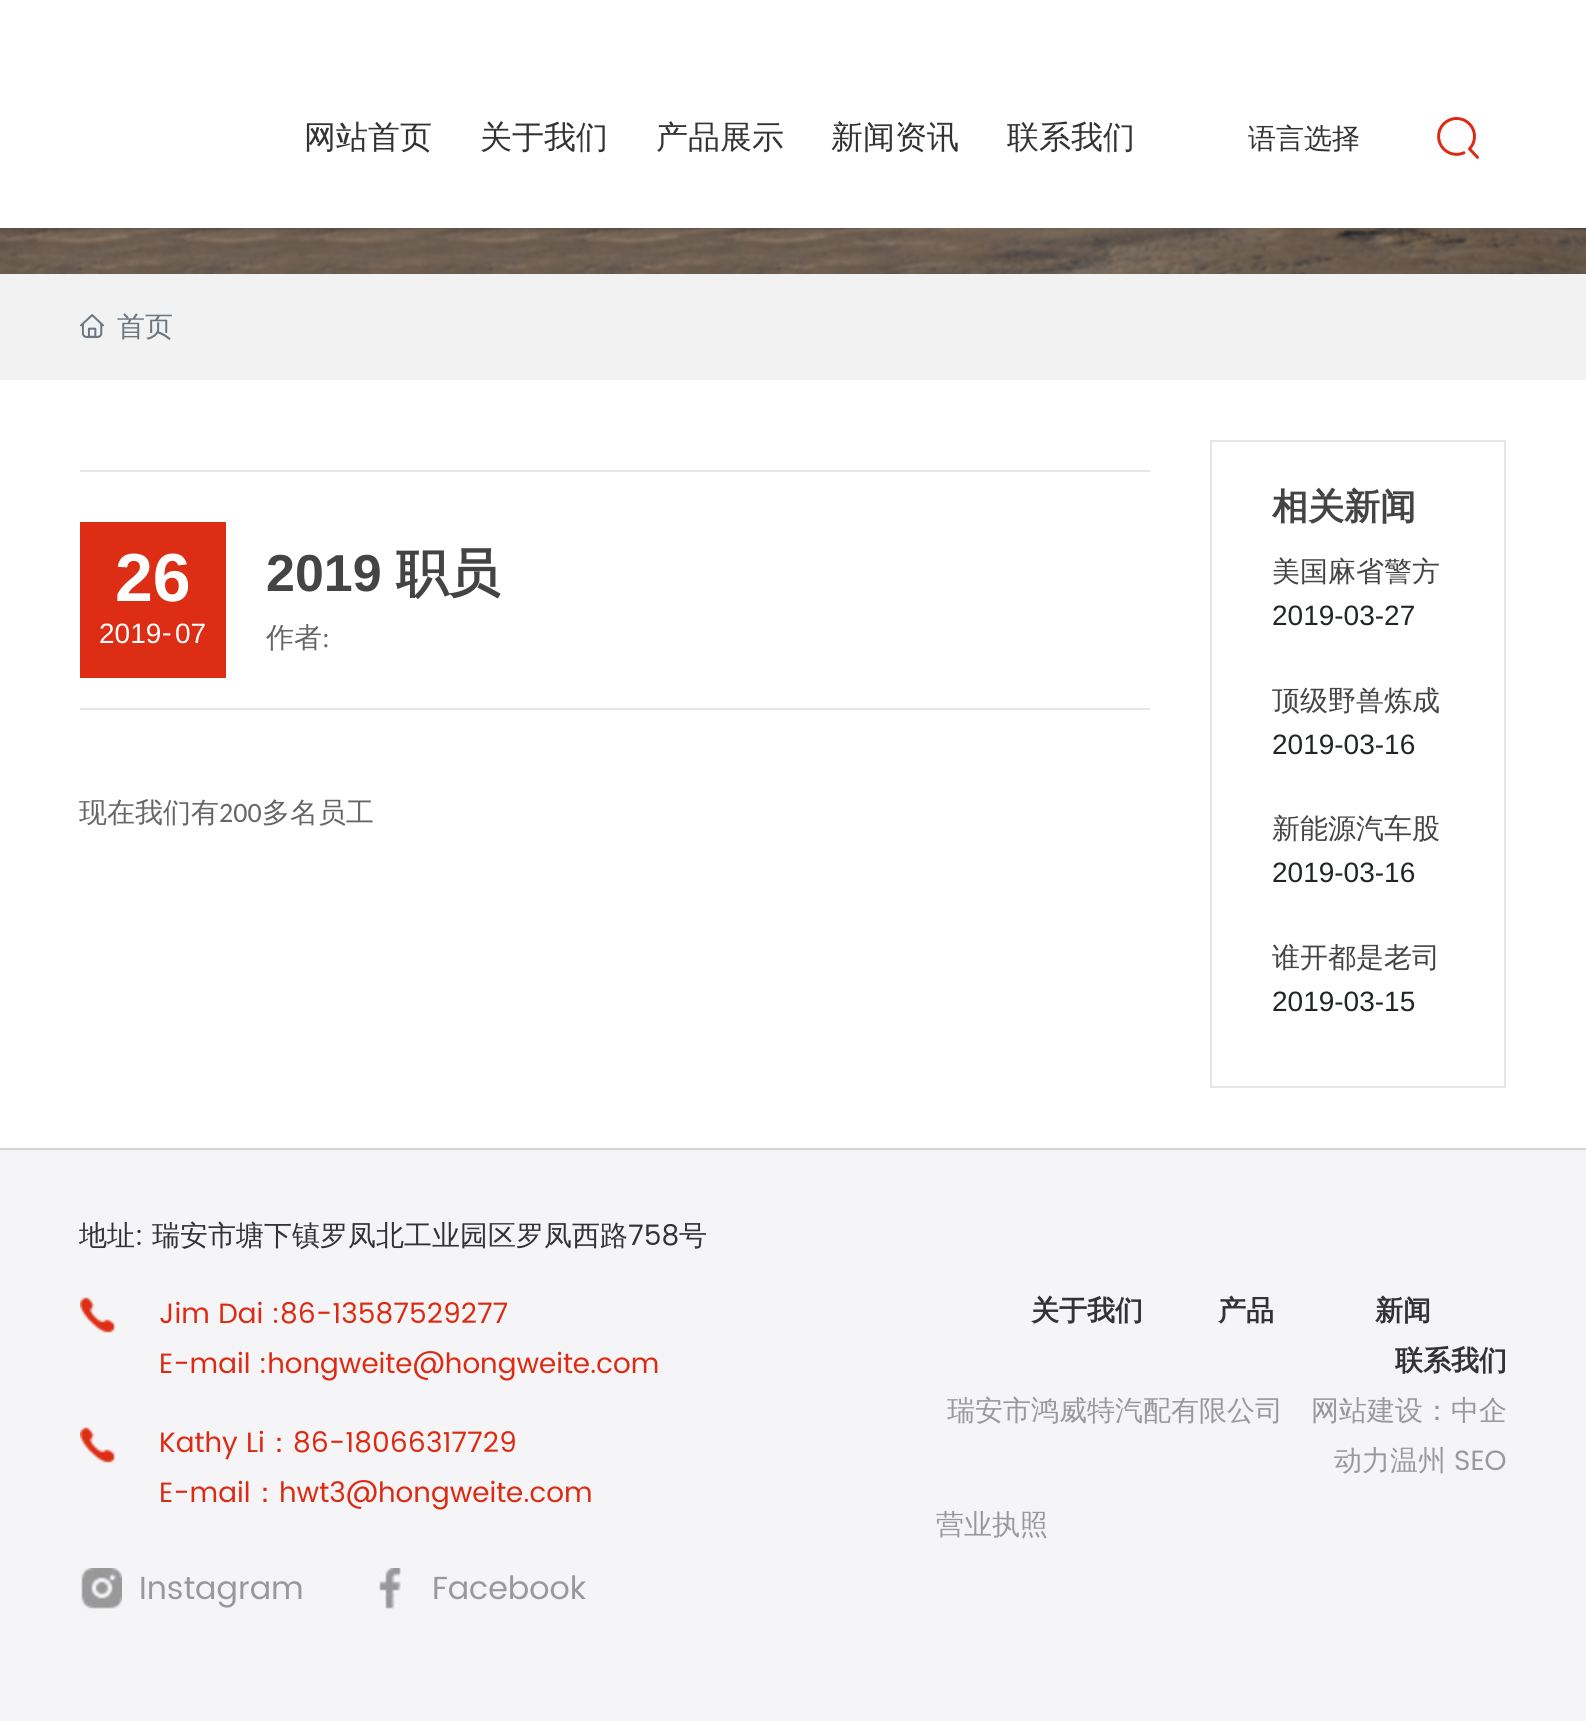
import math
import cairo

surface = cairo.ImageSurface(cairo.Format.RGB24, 1586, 1721)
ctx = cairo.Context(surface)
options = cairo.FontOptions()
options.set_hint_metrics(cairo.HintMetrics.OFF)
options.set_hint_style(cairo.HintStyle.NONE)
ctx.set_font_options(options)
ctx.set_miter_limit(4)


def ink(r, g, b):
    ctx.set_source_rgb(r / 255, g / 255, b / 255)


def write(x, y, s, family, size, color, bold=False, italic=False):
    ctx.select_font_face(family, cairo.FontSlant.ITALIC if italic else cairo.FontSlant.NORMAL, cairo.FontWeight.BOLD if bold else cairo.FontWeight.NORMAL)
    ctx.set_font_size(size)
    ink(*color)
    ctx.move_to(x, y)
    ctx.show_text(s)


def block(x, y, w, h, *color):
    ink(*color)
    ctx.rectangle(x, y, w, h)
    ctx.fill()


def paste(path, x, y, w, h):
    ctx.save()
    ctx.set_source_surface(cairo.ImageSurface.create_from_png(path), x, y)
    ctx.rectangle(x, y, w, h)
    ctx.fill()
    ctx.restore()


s1 = dict(family="WenQuanYi Zen Hei Medium", size=32, color=(51, 51, 51))
s2 = dict(family="WenQuanYi Zen Hei Medium", size=28, color=(51, 51, 51))
s3 = dict(family="WenQuanYi Zen Hei Medium", size=28, color=(108, 117, 125))
s4 = dict(family="Liberation Sans", size=68, color=(255, 255, 255), bold=True)
s5 = dict(family="Liberation Sans", size=28, color=(255, 255, 255))
s6 = dict(family="Liberation Serif", size=28, color=(255, 255, 255))
s7 = dict(family="Liberation Sans", size=52, color=(68, 68, 68), bold=True)
s8 = dict(family="WenQuanYi Zen Hei", size=52, color=(68, 68, 68), bold=True)
s9 = dict(family="WenQuanYi Zen Hei Medium", size=28, color=(102, 102, 102))
s10 = dict(family="Liberation Serif", size=28, color=(102, 102, 102))
s11 = dict(family="Carlito", size=28, color=(102, 102, 102))
s12 = dict(family="WenQuanYi Zen Hei", size=36, color=(68, 68, 68), bold=True)
s13 = dict(family="WenQuanYi Zen Hei Medium", size=28, color=(68, 68, 68))
s14 = dict(family="Liberation Sans", size=28, color=(33, 37, 41))
s15 = dict(family="Poppins", size=28, color=(51, 51, 51))
s16 = dict(family="Poppins", size=28, color=(221, 43, 19))
s17 = dict(family="WenQuanYi Zen Hei Medium", size=28, color=(221, 43, 19))
s18 = dict(family="Poppins", size=32, color=(153, 153, 153))
s19 = dict(family="WenQuanYi Zen Hei", size=28, color=(51, 51, 51), bold=True)
s20 = dict(family="WenQuanYi Zen Hei Medium", size=28, color=(153, 153, 153))
s21 = dict(family="Poppins", size=28, color=(153, 153, 153))

ink(255, 255, 255)
ctx.paint()
write(304, 148, "网站首页", **s1)
write(480, 148, "关于我们", **s1)
write(656, 148, "产品展示", **s1)
write(831, 148, "新闻资讯", **s1)
write(1007, 148, "联系我们", **s1)
write(1248, 148, "语言选择", **s2)
paste("pic1.png", 1437, 117, 42, 42)
paste("pic2.png", 0, 228, 1586, 46)
block(0, 274, 1586, 106, 242, 242, 242)
paste("pic3.png", 80, 314, 24, 24)
write(117, 336, "首页", **s3)
block(80, 470, 1070, 2, 230, 230, 230)
block(80, 522, 146, 156, 221, 45, 20)
write(115, 601, "26", **s4)
write(99, 643, "2019", **s5)
write(162, 641, "-", **s6)
write(175, 643, "07", **s5)
write(266, 591, "2019", **s7)
write(396, 591, "职员", **s8)
write(266, 647, "作者", **s9)
write(322, 647, ":", **s10)
block(80, 708, 1070, 2, 230, 230, 230)
write(79, 822, "现在我们有", **s9)
write(219, 822, "200", **s11)
write(262, 822, "多名员工", **s9)
ctx.rectangle(1211, 441, 294, 646)
ink(229, 229, 229)
ctx.stroke()
write(1272, 519, "相关新闻", **s12)
write(1272, 581, "美国麻省警方", **s13)
write(1272, 625, "2019-03-27", **s14)
write(1272, 710, "顶级野兽炼成", **s13)
write(1272, 754, "2019-03-16", **s14)
write(1272, 838, "新能源汽车股", **s13)
write(1272, 882, "2019-03-16", **s14)
write(1272, 967, "谁开都是老司", **s13)
write(1272, 1011, "2019-03-15", **s14)
block(0, 1150, 1586, 571, 245, 245, 248)
block(0, 1148, 1586, 2, 213, 213, 213)
write(79, 1245, "地址", **s2)
write(135, 1245, ":", **s15)
write(152, 1245, "瑞安市塘下镇罗凤北工业园区罗凤西路", **s2)
write(628, 1245, "758", **s15)
write(679, 1245, "号", **s2)
paste("pic4.png", 80, 1297, 35, 36)
write(159, 1323, "Jim Dai :86-13587529277", **s16)
write(159, 1373, "E-mail :hongweite@hongweite.com", **s16)
paste("pic4.png", 80, 1427, 35, 36)
write(159, 1452, "Kathy Li", **s16)
write(265, 1452, "：", **s17)
write(293, 1452, "86-18066317729", **s16)
write(159, 1502, "E-mail", **s16)
write(251, 1502, "：", **s17)
write(279, 1502, "hwt3@hongweite.com", **s16)
paste("pic5.png", 81, 1568, 41, 41)
write(139, 1599, "Instagram", **s18)
paste("pic6.png", 379, 1568, 22, 41)
write(432, 1599, "Facebook", **s18)
write(1031, 1320, "关于我们", **s19)
write(1218, 1320, "产品", **s19)
write(1375, 1320, "新闻", **s19)
write(1395, 1370, "联系我们", **s19)
write(947, 1420, "瑞安市鸿威特汽配有限公司", **s20)
write(1311, 1420, "网站建设：中企", **s20)
write(1334, 1470, "动力温州", **s20)
write(1454, 1470, "SEO", **s21)
write(936, 1534, "营业执照", **s20)
surface.write_to_png("screenshot.png")
